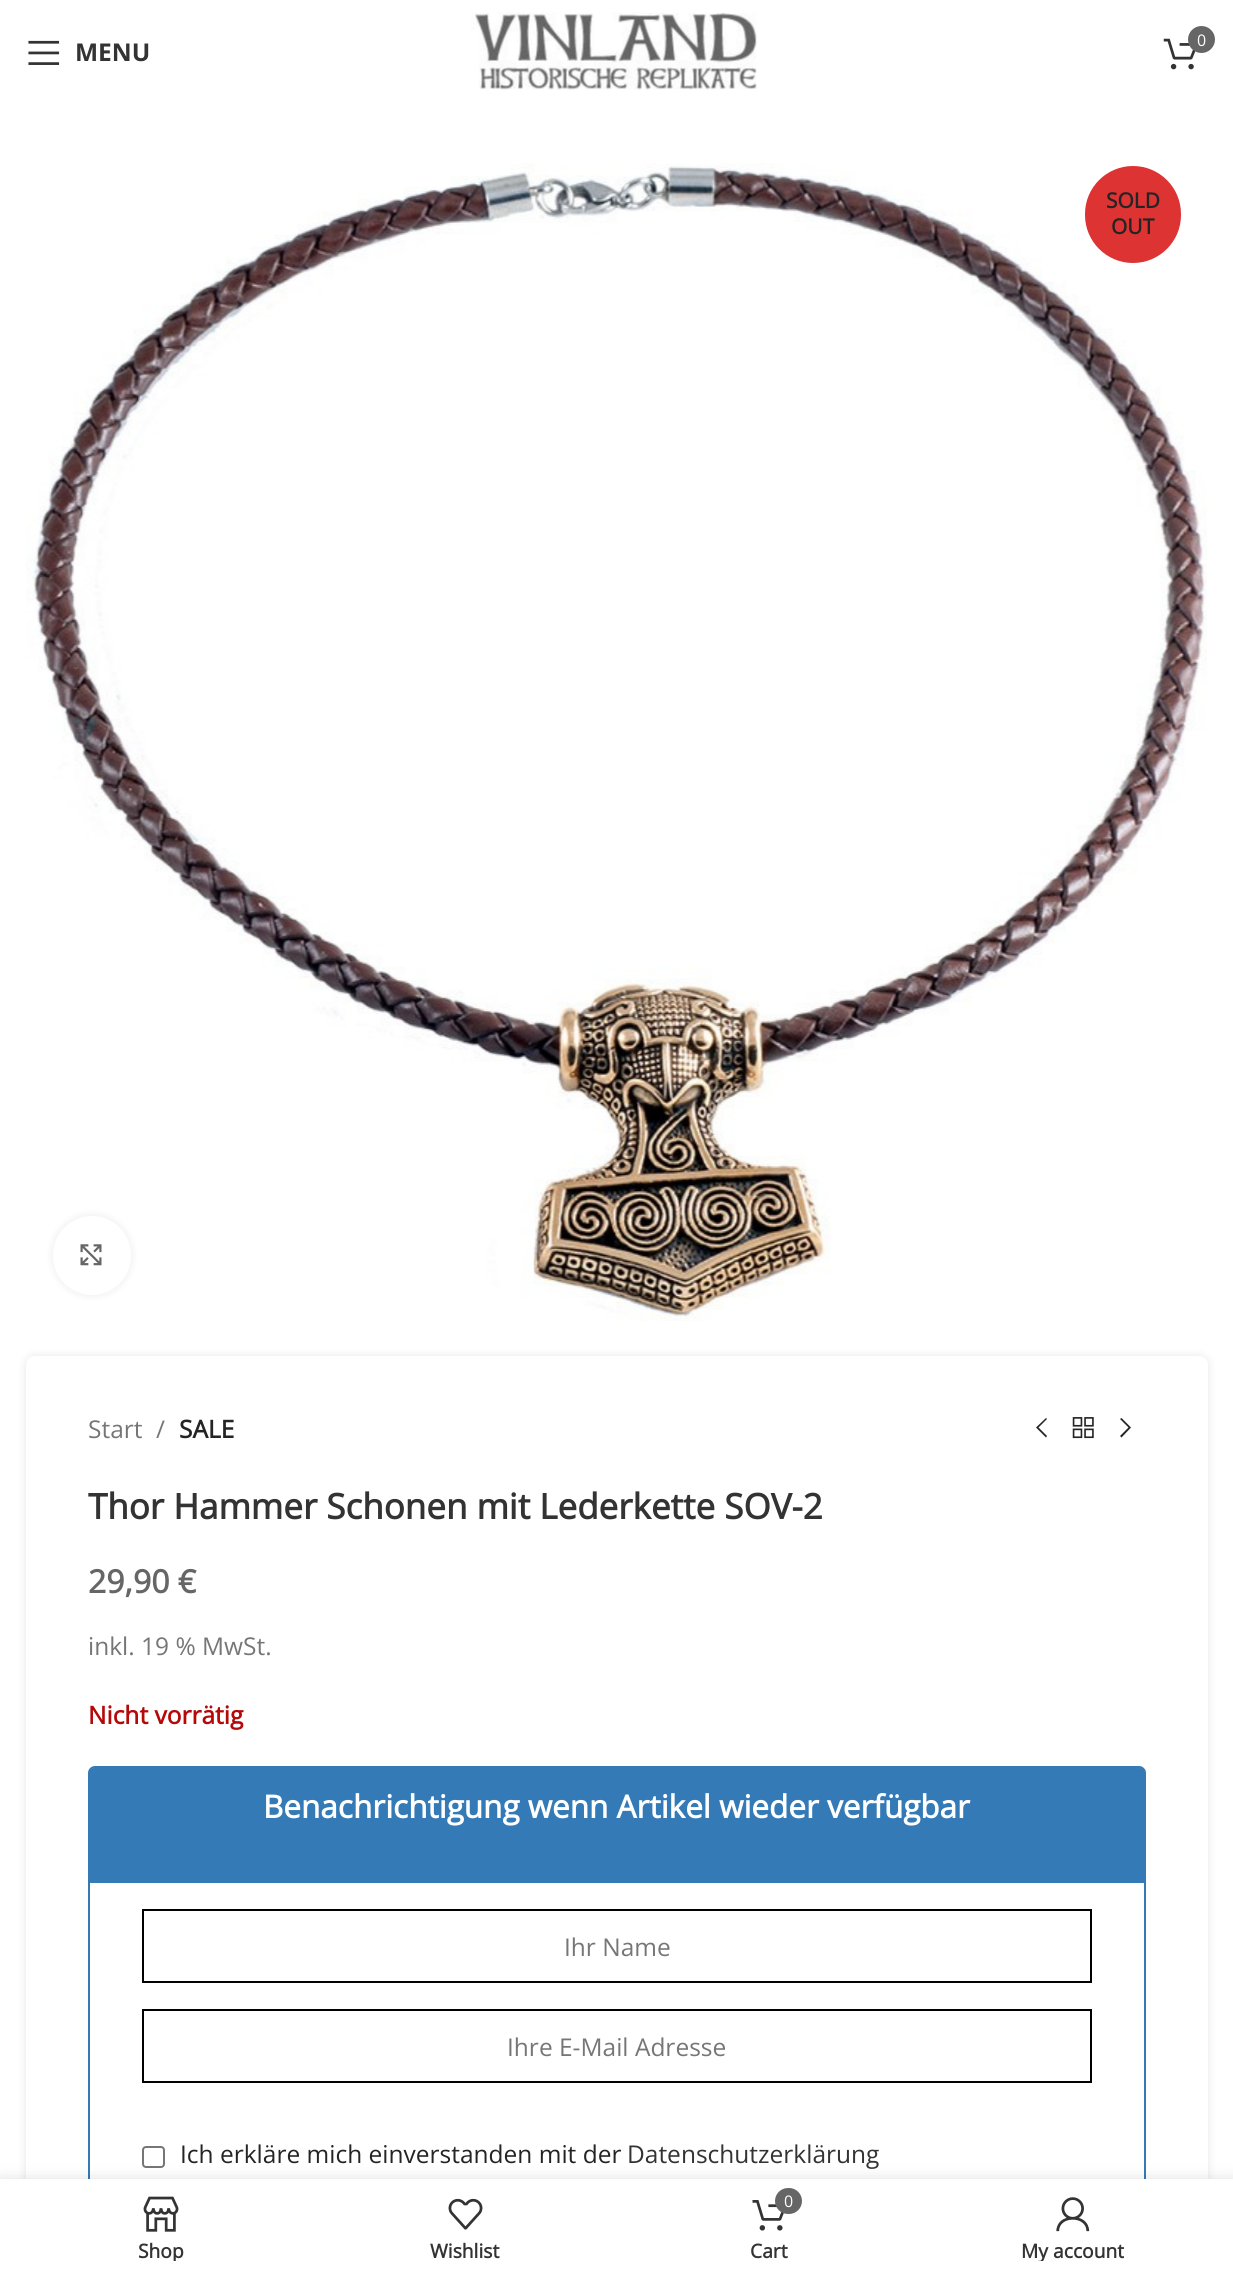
import math
import cairo

surface = cairo.ImageSurface(cairo.Format.RGB24, 1233, 2275)
ctx = cairo.Context(surface)
options = cairo.FontOptions()
options.set_hint_metrics(cairo.HintMetrics.OFF)
options.set_hint_style(cairo.HintStyle.NONE)
ctx.set_font_options(options)
ctx.set_miter_limit(4)


def ink(r, g, b):
    ctx.set_source_rgb(r / 255, g / 255, b / 255)


def write(x, y, s, family, size, color, bold=False, italic=False):
    ctx.select_font_face(family, cairo.FontSlant.ITALIC if italic else cairo.FontSlant.NORMAL, cairo.FontWeight.BOLD if bold else cairo.FontWeight.NORMAL)
    ctx.set_font_size(size)
    ink(*color)
    ctx.move_to(x, y)
    ctx.show_text(s)


def block(x, y, w, h, *color):
    ink(*color)
    ctx.rectangle(x, y, w, h)
    ctx.fill()


def round_path(x, y, w, h, r):
    ctx.new_sub_path()
    for i, (u, v) in enumerate([(x + w - r, y + h - r), (x + r, y + h - r), (x + r, y + r), (x + w - r, y + r)]):
        ctx.arc(u, v, r, i * math.pi / 2, (i + 1) * math.pi / 2)
    ctx.close_path()


def blur_box(x, y, w, h, r, blur, alpha):
    ctx.push_group_with_content(cairo.Content.ALPHA)
    ctx.set_operator(cairo.Operator.SOURCE)
    for i in range(15, -16, -2):
        e = blur * i / 6
        if min(w, h) + 2 * e > 0:
            ctx.set_source_rgba(0, 0, 0, alpha * math.erfc((i - 1) / 8.5) / 2)
            round_path(x - e, y - e, w + 2 * e, h + 2 * e, max(0, min(r + e + blur * .6, min(w, h) / 2 + e)))
            ctx.fill()
    ctx.mask(ctx.pop_group())


def paste(path, x, y, w, h):
    ctx.save()
    ctx.set_source_surface(cairo.ImageSurface.create_from_png(path), x, y)
    ctx.rectangle(x, y, w, h)
    ctx.fill()
    ctx.restore()


s1 = dict(family="Open Sans", size=16, color=(255, 255, 255))
s2 = dict(family="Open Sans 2", size=24.5, color=(51, 51, 51), bold=True)
s3 = dict(family="Open Sans", size=21, color=(36, 36, 36), bold=True)
s4 = dict(family="Open Sans", size=24.5, color=(118, 118, 118))
s5 = dict(family="Open Sans", size=24.5, color=(36, 36, 36), bold=True)
s6 = dict(family="Open Sans", size=35, color=(51, 51, 51), bold=True)
s7 = dict(family="Open Sans", size=32, color=(102, 102, 102), bold=True)
s8 = dict(family="Open Sans", size=24.5, color=(181, 8, 8), bold=True)
s9 = dict(family="Open Sans", size=31.5, color=(255, 255, 255), bold=True)
s10 = dict(family="Open Sans", size=24.5, color=(36, 36, 36))
s11 = dict(family="Open Sans", size=24.5, color=(51, 51, 51))
s12 = dict(family="Open Sans", size=19.25, color=(51, 51, 51), bold=True)

ink(255, 255, 255)
ctx.paint()
paste("pic1.png", 471, 12, 286, 78)
paste("pic2.png", 1163, 38, 33, 32)
ink(102, 102, 102)
ctx.arc(1201.5, 39.5, 13.5, 0, 2 * math.pi)
ctx.fill()
write(1197, 46, "0", **s1)
paste("pic3.png", 28, 40, 32, 25)
write(75, 61, "MENU", **s2)
paste("pic4.png", 26, 163, 1181, 1158)
ink(221, 51, 51)
round_path(1085, 166, 96, 97, 48)
ctx.fill()
write(1106, 208, "SOLD", **s3)
write(1111, 234, "OUT", **s3)
ink(0, 0, 0)
blur_box(53, 1216, 78, 79, 39, 4.5, 0.08)
ink(255, 255, 255)
round_path(53, 1216, 78, 79, 39)
ctx.fill()
paste("pic5.png", 80, 1244, 22, 22)
ink(0, 0, 0)
blur_box(26, 1356, 1182, 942, 9, 4.5, 0.1)
ink(255, 255, 255)
round_path(26, 1356, 1182, 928, 9)
ctx.fill()
write(88, 1438, "Start", **s4)
write(156, 1438, "/", **s4)
write(179, 1438, "SALE", **s5)
ctx.new_path()
ctx.move_to(1047, 1419)
ctx.line_to(1046, 1418)
ctx.line_to(1036, 1427.5)
ctx.line_to(1046, 1437.5)
ctx.line_to(1047, 1436)
ctx.line_to(1038.5, 1427.5)
ctx.close_path()
ctx.fill()
paste("pic6.png", 1072, 1417, 22, 22)
ctx.new_path()
ctx.move_to(1120, 1419)
ctx.line_to(1128.5, 1427.5)
ctx.line_to(1120, 1436)
ctx.line_to(1121.5, 1437.5)
ctx.line_to(1131, 1427.5)
ctx.line_to(1121.5, 1418)
ctx.close_path()
ctx.fill()
write(88, 1519, "Thor Hammer Schonen mit Lederkette SOV-2", **s6)
write(88, 1593, "29,90 €", **s7)
write(88, 1655, "inkl. 19 % MwSt.", **s4)
write(88, 1724, "Nicht vorrätig", **s8)
round_path(89, 1767, 1056, 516, 6)
ink(51, 122, 183)
ctx.stroke()
ctx.new_path()
ctx.move_to(94, 1768)
ctx.line_to(1140, 1768)
ctx.curve_to(1143, 1768, 1145, 1770, 1145, 1773)
ctx.line_to(1145, 1883)
ctx.line_to(89, 1883)
ctx.line_to(89, 1773)
ctx.curve_to(89, 1770, 91, 1768, 94, 1768)
ctx.close_path()
ctx.fill()
write(263, 1818, "Benachrichtigung wenn Artikel wieder verfügbar", **s9)
ctx.rectangle(143, 1910, 948, 72)
ink(0, 0, 0)
ctx.stroke()
write(564, 1956, "Ihr Name", **s4)
ctx.rectangle(143, 2010, 948, 72)
ink(0, 0, 0)
ctx.stroke()
write(507, 2056, "Ihre E-Mail Adresse", **s4)
round_path(143, 2147, 21, 20, 3)
ctx.stroke()
write(180, 2163, "Ich erkläre mich einverstanden mit der", **s10)
write(627, 2163, "Datenschutzerklärung", **s11)
ink(0, 0, 0)
blur_box(0, 2179, 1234, 96, 0, 8, 0.12)
block(0, 2179, 1233, 96, 255, 255, 255)
paste("pic7.png", 143, 2196, 36, 36)
ctx.save()
ctx.rectangle(26, 2238, 270, 23)
ctx.clip()
write(138, 2258, "Shop", **s12)
ctx.restore()
paste("pic8.png", 448, 2198, 35, 32)
write(430, 2258, "Wishlist", **s12)
paste("pic9.png", 752, 2200, 32, 31)
ink(102, 102, 102)
round_path(775, 2188, 27, 26, 13)
ctx.fill()
write(784, 2207, "0", **s1)
write(750, 2258, "Cart", **s12)
paste("pic10.png", 1056, 2197, 34, 35)
ctx.save()
ctx.rectangle(938, 2238, 270, 23)
ctx.clip()
write(1021, 2258, "My account", **s12)
ctx.restore()
surface.write_to_png("screenshot.png")
